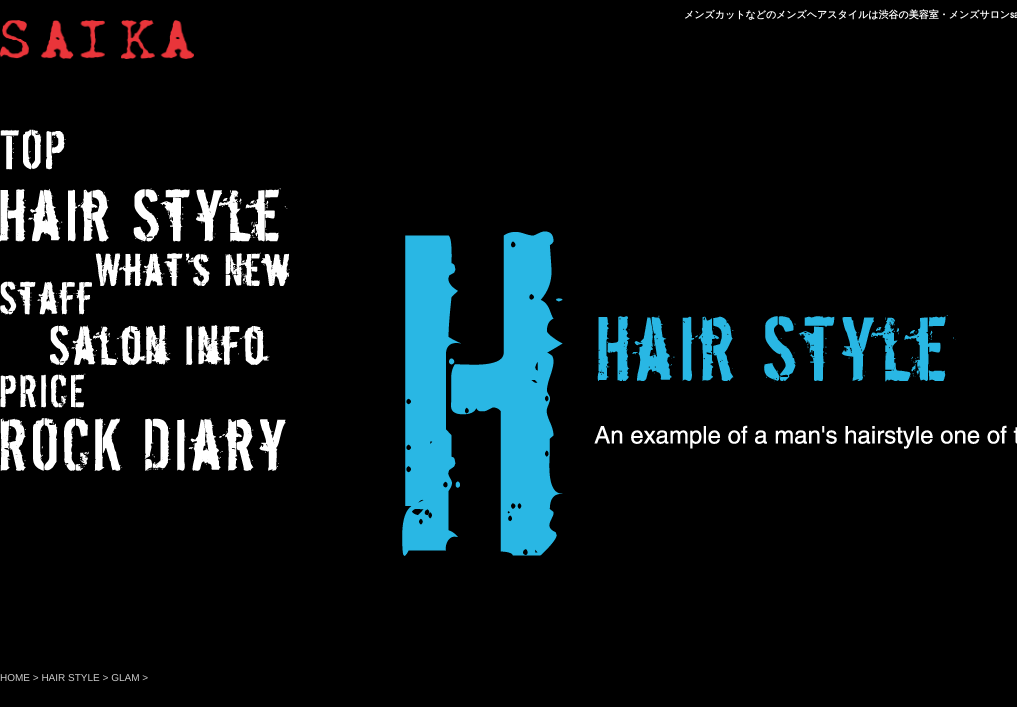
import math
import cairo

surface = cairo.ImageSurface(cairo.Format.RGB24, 1017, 707)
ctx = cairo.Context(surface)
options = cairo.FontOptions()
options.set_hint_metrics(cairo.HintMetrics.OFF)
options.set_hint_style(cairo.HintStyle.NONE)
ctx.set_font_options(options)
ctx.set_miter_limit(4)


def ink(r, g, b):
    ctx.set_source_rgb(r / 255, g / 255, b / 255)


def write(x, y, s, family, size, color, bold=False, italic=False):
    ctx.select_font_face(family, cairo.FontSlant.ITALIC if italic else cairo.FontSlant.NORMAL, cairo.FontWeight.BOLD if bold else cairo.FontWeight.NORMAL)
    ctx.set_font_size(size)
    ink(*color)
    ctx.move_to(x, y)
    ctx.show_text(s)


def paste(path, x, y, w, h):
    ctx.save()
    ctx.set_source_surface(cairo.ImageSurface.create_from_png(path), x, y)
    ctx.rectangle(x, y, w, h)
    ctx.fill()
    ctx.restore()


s1 = dict(family="WenQuanYi Zen Hei", size=10, color=(255, 255, 255), bold=True)
s2 = dict(family="Archivo Narrow", size=10, color=(255, 255, 255), bold=True)
s3 = dict(family="Liberation Sans", size=10, color=(204, 204, 204))

ink(0, 0, 0)
ctx.paint()
write(684, 18, "メンズカットなどのメンズヘアスタイルは渋谷の美容室・メンズサロン", **s1)
write(1010, 18, "sa", **s2)
paste("pic1.png", 0, 20, 194, 39)
paste("pic2.png", 0, 129, 66, 41)
paste("pic3.png", 0, 188, 288, 54)
paste("pic4.png", 95, 252, 195, 34)
paste("pic5.png", 0, 281, 92, 34)
paste("pic6.png", 50, 325, 220, 41)
paste("pic7.png", 0, 373, 86, 35)
paste("pic8.png", 0, 417, 286, 54)
paste("pic9.png", 402, 231, 615, 325)
write(0, 681, "HOME > HAIR STYLE > GLAM >", **s3)
surface.write_to_png("screenshot.png")
